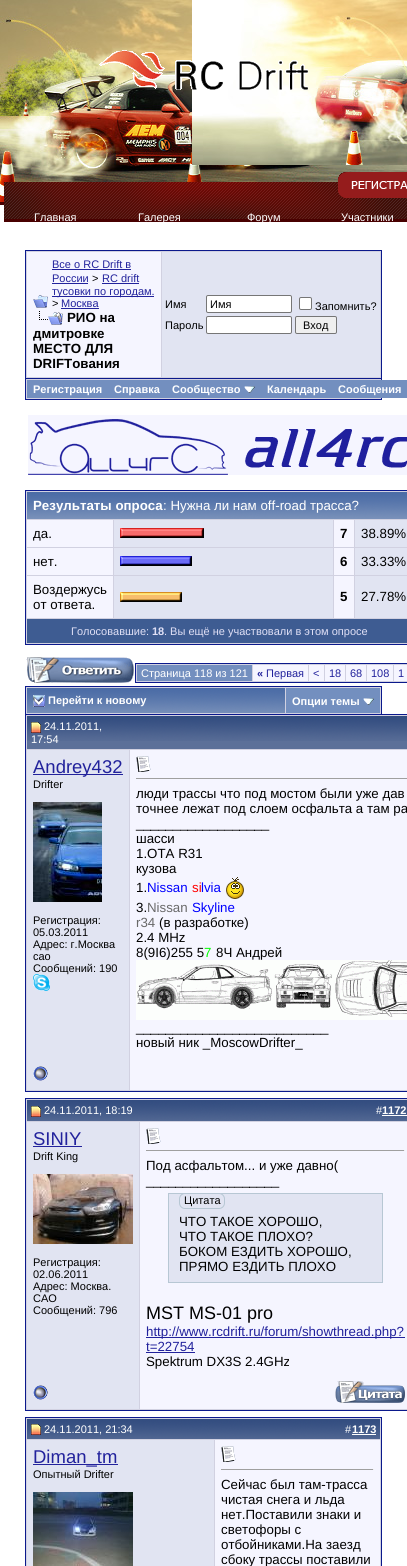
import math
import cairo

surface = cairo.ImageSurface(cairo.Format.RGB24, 407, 1566)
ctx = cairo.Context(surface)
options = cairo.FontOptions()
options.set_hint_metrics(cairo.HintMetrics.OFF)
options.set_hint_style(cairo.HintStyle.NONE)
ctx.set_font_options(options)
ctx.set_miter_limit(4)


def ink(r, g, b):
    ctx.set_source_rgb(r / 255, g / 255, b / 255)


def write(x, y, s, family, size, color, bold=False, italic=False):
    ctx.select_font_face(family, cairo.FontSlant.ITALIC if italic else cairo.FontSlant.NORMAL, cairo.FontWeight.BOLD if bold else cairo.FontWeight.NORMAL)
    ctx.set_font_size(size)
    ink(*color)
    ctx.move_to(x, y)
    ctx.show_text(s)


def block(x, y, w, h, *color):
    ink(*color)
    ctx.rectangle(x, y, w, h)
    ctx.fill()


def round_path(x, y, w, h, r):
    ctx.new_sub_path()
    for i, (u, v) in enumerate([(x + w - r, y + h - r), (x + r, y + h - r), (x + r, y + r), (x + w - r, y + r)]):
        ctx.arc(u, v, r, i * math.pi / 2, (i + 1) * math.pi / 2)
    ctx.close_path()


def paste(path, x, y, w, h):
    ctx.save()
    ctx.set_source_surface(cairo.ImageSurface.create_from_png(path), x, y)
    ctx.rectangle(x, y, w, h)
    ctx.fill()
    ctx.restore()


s1 = dict(family="Liberation Sans", size=11, color=(255, 255, 255))
s2 = dict(family="Liberation Sans", size=11, color=(34, 34, 156))
s3 = dict(family="Liberation Sans", size=11, color=(0, 0, 0))
s4 = dict(family="Liberation Sans", size=13.3, color=(0, 0, 0), bold=True)
s5 = dict(family="Liberation Sans", size=11, color=(255, 255, 255), bold=True)
s6 = dict(family="Liberation Sans", size=13.3, color=(255, 255, 255), bold=True)
s7 = dict(family="Liberation Sans", size=13.3, color=(255, 255, 255))
s8 = dict(family="Liberation Sans", size=13.3, color=(0, 0, 0))
s9 = dict(family="Liberation Sans", size=11, color=(224, 224, 246))
s10 = dict(family="Liberation Sans", size=11, color=(224, 224, 246), bold=True)
s11 = dict(family="Liberation Sans", size=11, color=(34, 34, 156), bold=True)
s12 = dict(family="Liberation Sans", size=18.5, color=(34, 34, 156))
s13 = dict(family="Liberation Sans", size=13.3, color=(0, 0, 255))
s14 = dict(family="Liberation Sans", size=13.3, color=(255, 0, 0))
s15 = dict(family="Liberation Sans", size=13.3, color=(105, 105, 105))
s16 = dict(family="Liberation Sans", size=13.3, color=(0, 255, 0))
s17 = dict(family="Liberation Sans", size=18, color=(0, 0, 0))
s18 = dict(family="Liberation Sans", size=13.3, color=(34, 34, 156))

ink(255, 255, 255)
ctx.paint()
paste("pic1.png", 192, 116, 11, 49)
paste("pic2.png", 0, 0, 192, 165)
paste("pic3.png", 203, 0, 204, 165)
paste("pic4.png", 99, 50, 209, 40)
paste("pic5.png", 0, 165, 407, 40)
paste("pic6.png", 4, 182, 403, 40)
paste("pic7.png", 338, 172, 69, 26)
write(34, 221, "Главная", **s1)
write(138, 221, "Галерея", **s1)
write(247, 221, "Форум", **s1)
write(341, 221, "Участники", **s1)
ink(209, 209, 225)
ctx.rectangle(25.5, 250.5, 356, 128)
ctx.fill_preserve()
ink(11, 25, 140)
ctx.set_line_width(1)
ctx.stroke()
block(27, 252, 134, 125, 245, 245, 255)
paste("pic8.png", 33, 295, 15, 13)
write(52, 268, "Все о RC Drift в", **s2)
block(52, 269, 79, 1, 34, 34, 156)
write(52, 282, "России", **s2)
block(52, 283, 36, 1, 34, 34, 156)
write(92, 282, ">", **s3)
write(102, 282, "RC drift", **s2)
block(102, 283, 37, 1, 34, 34, 156)
block(52, 296, 102, 1, 34, 34, 156)
write(52, 295, "тусовки по городам.", **s2)
write(52, 307, ">", **s3)
write(61, 307, "Москва", **s2)
block(61, 308, 38, 1, 34, 34, 156)
paste("pic9.png", 39, 311, 24, 14)
write(67, 322, "РИО на", **s4)
write(33, 338, "дмитровке", **s4)
write(33, 353, "МЕСТО ДЛЯ", **s4)
write(33, 368, "DRIFTования", **s4)
block(162, 252, 218, 125, 225, 228, 242)
write(165, 308, "Имя", **s3)
ink(255, 255, 255)
round_path(206.5, 295.5, 85, 17, 1.5)
ctx.fill_preserve()
ink(118, 118, 118)
ctx.stroke()
write(210, 308, "Имя", **s3)
ink(255, 255, 255)
round_path(299.5, 297.5, 12, 12, 1.5)
ctx.fill_preserve()
ink(118, 118, 118)
ctx.stroke()
write(315, 310, "Запомнить?", **s3)
write(165, 329, "Пароль", **s3)
ink(255, 255, 255)
round_path(206.5, 316.5, 85, 17, 1.5)
ctx.fill_preserve()
ink(118, 118, 118)
ctx.stroke()
ink(239, 239, 239)
round_path(295.5, 316.5, 41, 17, 1.5)
ctx.fill_preserve()
ink(118, 118, 118)
ctx.stroke()
write(303, 329, "Вход", **s3)
block(26, 379, 355, 20, 209, 209, 225)
block(381, 379, 1, 21, 11, 25, 140)
block(25, 399, 357, 1, 11, 25, 140)
block(25, 379, 1, 21, 11, 25, 140)
block(27, 380, 380, 18, 115, 143, 191)
write(33, 393, "Регистрация", **s5)
write(114, 393, "Справка", **s5)
write(172, 393, "Сообщество", **s5)
paste("pic10.png", 244, 386, 11, 7)
write(267, 393, "Календарь", **s5)
write(338, 393, "Сообщения", **s5)
paste("pic11.png", 28, 415, 379, 60)
ink(209, 209, 225)
ctx.rectangle(25.5, 490.5, 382, 154)
ctx.fill_preserve()
ink(11, 25, 140)
ctx.stroke()
paste("pic12.png", 27, 492, 380, 27)
write(33, 510, "Результаты опроса", **s6)
write(163, 510, ": Нужна ли нам off-road трасса?", **s7)
block(27, 520, 86, 27, 245, 245, 255)
write(33, 538, "да.", **s8)
block(114, 520, 219, 27, 225, 228, 242)
paste("pic13.png", 120, 528, 3, 10)
paste("pic14.png", 123, 528, 78, 10)
paste("pic15.png", 201, 528, 3, 10)
block(334, 520, 20, 27, 245, 245, 255)
write(340, 538, "7", **s4)
block(355, 520, 52, 27, 225, 228, 242)
write(361, 538, "38.89%", **s8)
block(27, 548, 86, 27, 245, 245, 255)
write(33, 566, "нет.", **s8)
block(114, 548, 219, 27, 225, 228, 242)
paste("pic16.png", 120, 556, 3, 10)
paste("pic17.png", 123, 556, 66, 10)
paste("pic18.png", 189, 556, 3, 10)
block(334, 548, 20, 27, 245, 245, 255)
write(340, 566, "6", **s4)
block(355, 548, 52, 27, 225, 228, 242)
write(361, 566, "33.33%", **s8)
block(27, 576, 86, 42, 245, 245, 255)
write(33, 594, "Воздержусь", **s8)
write(33, 609, "от ответа.", **s8)
block(114, 576, 219, 42, 225, 228, 242)
paste("pic19.png", 120, 592, 3, 10)
paste("pic20.png", 123, 592, 56, 10)
paste("pic21.png", 179, 592, 3, 10)
block(334, 576, 20, 42, 245, 245, 255)
write(340, 601, "5", **s4)
block(355, 576, 52, 42, 225, 228, 242)
write(361, 601, "27.78%", **s8)
block(27, 619, 380, 24, 62, 92, 146)
write(71, 635, "Голосовавшие:", **s9)
write(152, 635, "18", **s10)
write(164, 635, ". Вы ещё не участвовали в этом опросе", **s9)
paste("pic22.png", 26, 657, 108, 26)
ink(209, 209, 225)
ctx.rectangle(135.5, 663.5, 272, 19)
ctx.fill_preserve()
ink(11, 25, 140)
ctx.stroke()
block(137, 665, 115, 16, 115, 143, 191)
write(141, 677, "Страница 118 из 121", **s1)
block(253, 665, 55, 16, 245, 245, 255)
write(257, 677, "«", **s11)
write(266, 677, "Первая", **s2)
block(309, 665, 15, 16, 245, 245, 255)
write(313, 677, "<", **s2)
block(325, 665, 20, 16, 245, 245, 255)
write(329, 677, "18", **s2)
block(346, 665, 20, 16, 245, 245, 255)
write(350, 677, "68", **s2)
block(367, 665, 26, 16, 245, 245, 255)
write(371, 677, "108", **s2)
block(394, 665, 13, 16, 245, 245, 255)
write(398, 677, "1", **s2)
block(26, 687, 355, 27, 209, 209, 225)
block(25, 686, 357, 1, 11, 25, 140)
block(381, 686, 1, 28, 11, 25, 140)
block(25, 686, 1, 28, 11, 25, 140)
paste("pic23.png", 27, 688, 258, 25)
paste("pic24.png", 33, 695, 12, 12)
write(48, 704, "Перейти к новому", **s5)
block(286, 688, 94, 25, 115, 143, 191)
write(292, 705, "Опции темы", **s5)
paste("pic10.png", 363, 698, 11, 7)
ctx.rectangle(25.5, 714.5, 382, 377)
ink(11, 25, 140)
ctx.stroke()
block(27, 741, 380, 8, 92, 112, 153)
paste("pic25.png", 27, 716, 103, 25)
block(26, 715, 381, 1, 209, 209, 225)
block(26, 749, 381, 1, 209, 209, 225)
block(26, 715, 1, 341, 209, 209, 225)
paste("pic26.png", 31, 722, 10, 11)
write(44, 730, "24.11.2011,", **s1)
write(31, 743, "17:54", **s1)
paste("pic27.png", 130, 716, 277, 25)
block(27, 750, 102, 340, 225, 228, 242)
block(129, 750, 1, 341, 209, 209, 225)
block(33, 774, 90, 1, 34, 34, 156)
write(33, 773, "Andrey432", **s12)
write(33, 788, "Drifter", **s3)
paste("pic28.png", 33, 802, 69, 100)
write(33, 924, "Регистрация:", **s3)
write(33, 936, "05.03.2011", **s3)
write(33, 948, "Адрес: г.Москва", **s3)
write(33, 960, "сао", **s3)
write(33, 972, "Сообщений: 190", **s3)
paste("pic29.png", 33, 974, 17, 17)
block(130, 750, 277, 340, 245, 245, 255)
paste("pic30.png", 136, 756, 15, 16)
block(136, 778, 271, 1, 159, 159, 159)
write(136, 798, "люди трассы что под мостом были уже дав", **s8)
write(136, 813, "точнее лежат под слоем осфальта а там ра", **s8)
write(136, 828, "__________________", **s8)
write(136, 843, "шасси", **s8)
write(136, 858, "1.OTA R31", **s8)
write(136, 873, "кузова", **s8)
write(136, 892, "1.", **s8)
write(147, 892, "Nissan", **s13)
write(192, 892, "si", **s14)
write(201, 892, "lvia", **s13)
paste("pic31.png", 226, 877, 18, 22)
write(136, 912, "3.", **s8)
write(147, 912, "Nissan", **s15)
write(192, 912, "Skyline", **s13)
write(136, 927, "r34", **s15)
write(159, 927, "(в разработке)", **s8)
write(136, 942, "2.4 MHz", **s8)
write(136, 957, "8(9I6)255 5", **s8)
write(204, 957, "7", **s16)
write(216, 957, "8Ч Андрей", **s8)
paste("pic32.png", 136, 960, 271, 60)
write(136, 1032, "__________________________", **s8)
write(136, 1047, "новый ник _MoscowDrifter_", **s8)
block(26, 1090, 381, 1, 209, 209, 225)
block(26, 1056, 1, 35, 209, 209, 225)
paste("pic33.png", 33, 1066, 15, 15)
ctx.rectangle(25.5, 1098.5, 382, 312)
ink(11, 25, 140)
ctx.stroke()
paste("pic34.png", 27, 1100, 113, 21)
block(26, 1099, 381, 1, 209, 209, 225)
block(26, 1121, 381, 1, 209, 209, 225)
block(26, 1099, 1, 276, 209, 209, 225)
paste("pic26.png", 31, 1106, 10, 11)
write(44, 1114, "24.11.2011, 18:19", **s1)
paste("pic35.png", 140, 1100, 267, 21)
write(376, 1114, "#", **s1)
write(382, 1114, "1172", **s5)
block(382, 1115, 25, 1, 255, 255, 255)
block(27, 1122, 112, 287, 225, 228, 242)
block(139, 1122, 1, 288, 209, 209, 225)
write(33, 1145, "SINIY", **s12)
block(33, 1146, 49, 1, 34, 34, 156)
write(33, 1160, "Drift King", **s3)
paste("pic36.png", 33, 1174, 100, 70)
write(33, 1266, "Регистрация:", **s3)
write(33, 1278, "02.06.2011", **s3)
write(33, 1290, "Адрес: Москва.", **s3)
write(33, 1302, "САО", **s3)
write(33, 1314, "Сообщений: 796", **s3)
block(140, 1122, 267, 287, 245, 245, 255)
paste("pic30.png", 146, 1128, 15, 16)
block(146, 1150, 259, 1, 159, 159, 159)
block(404, 1150, 1, 1, 238, 238, 238)
write(146, 1170, "Под асфальтом... и уже давно(", **s8)
write(146, 1185, "__________________", **s8)
ink(225, 228, 242)
ctx.rectangle(168.5, 1193.5, 214, 89)
ctx.fill_preserve()
ink(183, 199, 212)
ctx.stroke()
ink(225, 228, 242)
round_path(179.5, 1193.5, 45, 15, 5.5)
ctx.fill_preserve()
ink(183, 199, 212)
ctx.stroke()
write(184, 1204, "Цитата", **s3)
write(179, 1226, "ЧТО ТАКОЕ ХОРОШО,", **s8)
write(179, 1241, "ЧТО ТАКОЕ ПЛОХО?", **s8)
write(179, 1256, "БОКОМ ЕЗДИТЬ ХОРОШО,", **s8)
write(179, 1271, "ПРЯМО ЕЗДИТЬ ПЛОХО", **s8)
write(146, 1319, "MST MS-01 pro", **s17)
block(146, 1337, 259, 1, 34, 34, 156)
write(146, 1336, "http://www.rcdrift.ru/forum/showthread.php?", **s18)
write(146, 1351, "t=22754", **s18)
block(146, 1352, 49, 1, 34, 34, 156)
write(146, 1366, "Spektrum DX3S 2.4GHz", **s8)
block(26, 1409, 381, 1, 209, 209, 225)
block(26, 1375, 1, 35, 209, 209, 225)
paste("pic33.png", 33, 1385, 15, 15)
paste("pic37.png", 335, 1381, 70, 22)
ctx.rectangle(25.5, 1417.5, 356, 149)
ink(11, 25, 140)
ctx.stroke()
paste("pic38.png", 27, 1419, 188, 20)
block(26, 1418, 355, 1, 209, 209, 225)
block(26, 1439, 189, 1, 209, 209, 225)
block(26, 1418, 1, 148, 209, 209, 225)
paste("pic39.png", 31, 1424, 10, 11)
write(44, 1433, "24.11.2011, 21:34", **s1)
paste("pic40.png", 215, 1419, 165, 20)
block(380, 1418, 1, 148, 209, 209, 225)
block(215, 1439, 166, 1, 209, 209, 225)
write(345, 1433, "#", **s1)
write(352, 1433, "1173", **s5)
block(352, 1434, 24, 1, 255, 255, 255)
block(27, 1440, 187, 126, 225, 228, 242)
block(214, 1440, 1, 126, 209, 209, 225)
block(33, 1464, 85, 1, 34, 34, 156)
write(33, 1463, "Diman_tm", **s12)
write(33, 1478, "Опытный Drifter", **s3)
paste("pic41.png", 33, 1492, 100, 74)
block(215, 1440, 165, 126, 245, 245, 255)
paste("pic30.png", 221, 1446, 15, 16)
block(221, 1469, 153, 1, 159, 159, 159)
block(373, 1469, 1, 1, 238, 238, 238)
write(221, 1489, "Сейчас был там-трасса", **s8)
write(221, 1504, "чистая снега и льда", **s8)
write(221, 1519, "нет.Поставили знаки и", **s8)
write(221, 1534, "светофоры с", **s8)
write(221, 1549, "отбойниками.На заезд", **s8)
write(221, 1564, "сбоку трассы поставили", **s8)
surface.write_to_png("screenshot.png")
